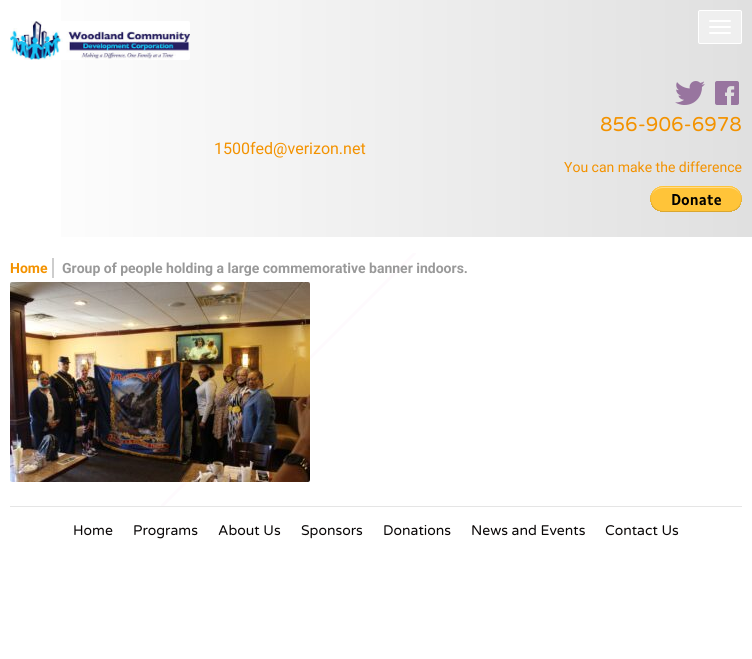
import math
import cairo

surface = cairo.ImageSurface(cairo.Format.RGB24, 752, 659)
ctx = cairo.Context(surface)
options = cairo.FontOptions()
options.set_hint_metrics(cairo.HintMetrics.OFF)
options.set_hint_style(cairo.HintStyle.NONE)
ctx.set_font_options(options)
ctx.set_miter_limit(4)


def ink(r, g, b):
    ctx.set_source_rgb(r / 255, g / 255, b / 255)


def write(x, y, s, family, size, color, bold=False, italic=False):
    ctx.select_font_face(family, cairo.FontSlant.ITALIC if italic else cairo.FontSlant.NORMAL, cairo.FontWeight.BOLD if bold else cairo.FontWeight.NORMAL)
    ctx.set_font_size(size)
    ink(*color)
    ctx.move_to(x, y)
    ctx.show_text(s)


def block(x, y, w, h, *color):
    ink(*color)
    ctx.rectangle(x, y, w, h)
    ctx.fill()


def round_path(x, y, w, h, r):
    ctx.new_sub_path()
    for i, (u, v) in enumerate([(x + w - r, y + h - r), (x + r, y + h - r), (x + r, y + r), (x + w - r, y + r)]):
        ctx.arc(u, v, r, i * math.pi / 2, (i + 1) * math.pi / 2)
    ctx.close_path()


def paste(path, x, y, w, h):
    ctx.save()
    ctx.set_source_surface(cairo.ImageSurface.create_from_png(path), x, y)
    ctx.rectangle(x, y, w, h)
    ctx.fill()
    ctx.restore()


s1 = dict(family="Varela Round", size=20, color=(243, 146, 0))
s2 = dict(family="Roboto", size=16, color=(243, 146, 0))
s3 = dict(family="Roboto", size=14, color=(243, 146, 0))
s4 = dict(family="Roboto", size=14, color=(243, 146, 0), bold=True)
s5 = dict(family="Roboto", size=14, color=(153, 153, 153), bold=True)
s6 = dict(family="Varela Round", size=14, color=(10, 7, 7))

ink(255, 255, 255)
ctx.paint()
gradient = cairo.LinearGradient(0, 119, 752, 118)
gradient.add_color_stop_rgba(0, 1, 1, 1, 1)
gradient.add_color_stop_rgba(1, 0.878, 0.878, 0.878, 1)
ctx.set_source(gradient)
ctx.rectangle(61, 0, 691, 237)
ctx.fill()
paste("pic1.png", 10, 21, 180, 39)
ink(239, 239, 239)
round_path(698.5, 10.5, 43, 33, 1.5)
ctx.fill_preserve()
ink(255, 255, 255)
ctx.set_line_width(1)
ctx.stroke()
round_path(709, 20, 22, 2, 1)
ctx.fill()
round_path(709, 26, 22, 2, 1)
ctx.fill()
round_path(709, 32, 22, 2, 1)
ctx.fill()
paste("pic2.png", 675, 81, 30, 24)
paste("pic3.png", 715, 81, 24, 24)
write(600, 131, "856-906-6978", **s1)
write(214, 154, "1500fed@verizon.net", **s2)
write(564, 172, "You can make the difference", **s3)
paste("pic4.png", 650, 186, 92, 26)
paste("pic5.png", 161, 253, 255, 253)
write(10, 273, "Home", **s4)
block(52, 258, 2, 20, 205, 205, 205)
write(62, 273, "Group of people holding a large commemorative banner indoors.", **s5)
paste("pic6.png", 10, 282, 300, 200)
block(10, 506, 732, 1, 229, 229, 229)
write(73, 535, "Home", **s6)
write(133, 535, "Programs", **s6)
write(218, 535, "About Us", **s6)
write(301, 535, "Sponsors", **s6)
write(383, 535, "Donations", **s6)
write(471, 535, "News and Events", **s6)
write(605, 535, "Contact Us", **s6)
surface.write_to_png("screenshot.png")
